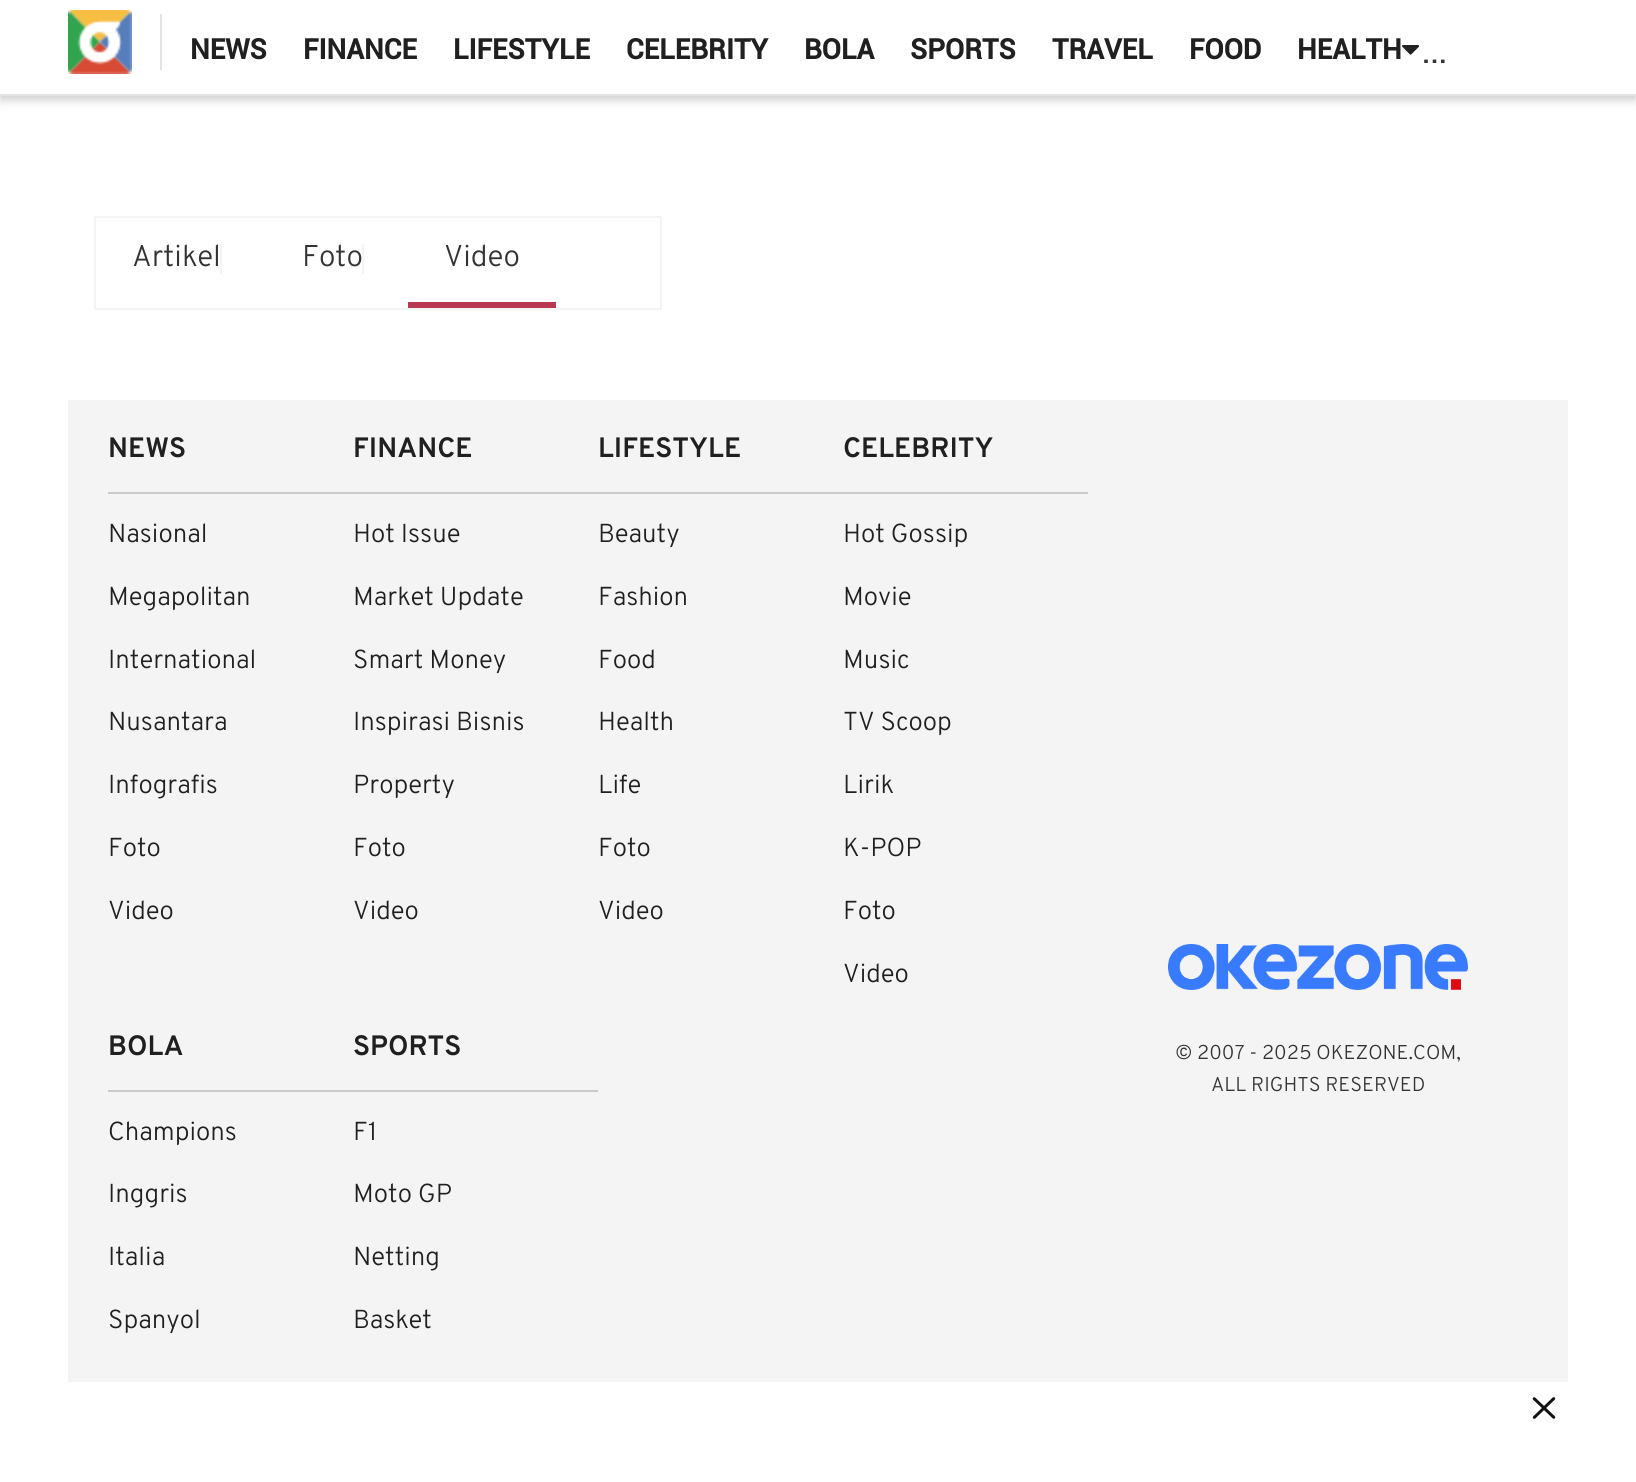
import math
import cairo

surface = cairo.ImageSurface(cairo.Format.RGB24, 1636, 1482)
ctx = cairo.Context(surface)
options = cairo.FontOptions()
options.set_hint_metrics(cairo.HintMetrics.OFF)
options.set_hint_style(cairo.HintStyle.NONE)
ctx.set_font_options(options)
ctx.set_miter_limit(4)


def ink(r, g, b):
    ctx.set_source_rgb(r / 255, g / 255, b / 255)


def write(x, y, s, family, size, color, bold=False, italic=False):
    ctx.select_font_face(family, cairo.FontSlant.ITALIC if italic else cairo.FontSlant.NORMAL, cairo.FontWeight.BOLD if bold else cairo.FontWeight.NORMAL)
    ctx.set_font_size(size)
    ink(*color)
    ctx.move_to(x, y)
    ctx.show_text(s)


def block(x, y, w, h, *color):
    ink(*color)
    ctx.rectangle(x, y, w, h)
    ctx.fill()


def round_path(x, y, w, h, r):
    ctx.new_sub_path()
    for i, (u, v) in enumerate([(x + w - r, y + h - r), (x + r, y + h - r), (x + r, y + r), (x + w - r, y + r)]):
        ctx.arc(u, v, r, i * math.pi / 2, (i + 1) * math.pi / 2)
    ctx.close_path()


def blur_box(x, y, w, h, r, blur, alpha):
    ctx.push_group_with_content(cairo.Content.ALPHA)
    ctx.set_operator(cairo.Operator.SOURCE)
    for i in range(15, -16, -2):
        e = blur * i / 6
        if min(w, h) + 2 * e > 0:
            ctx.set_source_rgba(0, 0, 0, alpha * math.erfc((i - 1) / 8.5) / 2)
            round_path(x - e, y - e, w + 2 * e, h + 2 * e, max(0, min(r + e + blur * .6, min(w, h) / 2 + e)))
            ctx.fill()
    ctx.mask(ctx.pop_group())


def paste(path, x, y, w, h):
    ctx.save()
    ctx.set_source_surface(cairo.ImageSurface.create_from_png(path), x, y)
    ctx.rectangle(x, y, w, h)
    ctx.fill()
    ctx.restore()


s1 = dict(family="Roboto", size=28, color=(32, 32, 32), bold=True)
s2 = dict(family="Roboto Medium", size=30, color=(51, 51, 51))
s3 = dict(family="Overpass Light", size=30, color=(51, 51, 51))
s4 = dict(family="Overpass", size=28, color=(32, 32, 32), bold=True)
s5 = dict(family="Overpass Light", size=26, color=(32, 32, 32))
s6 = dict(family="Overpass Light", size=20, color=(51, 51, 51))

ink(255, 255, 255)
ctx.paint()
ink(0, 0, 0)
blur_box(0, 4, 1636, 96, 0, 5, 0.2)
block(0, 0, 1636, 94, 255, 255, 255)
block(0, 94, 1636, 2, 228, 228, 228)
paste("pic1.png", 68, 10, 64, 64)
block(160, 14, 2, 56, 228, 228, 228)
write(190, 59, "NEWS", **s1)
write(303, 59, "FINANCE", **s1)
write(453, 59, "LIFESTYLE", **s1)
write(626, 59, "CELEBRITY", **s1)
write(804, 59, "BOLA", **s1)
write(910, 59, "SPORTS", **s1)
write(1052, 59, "TRAVEL", **s1)
write(1189, 59, "FOOD", **s1)
write(1297, 59, "HEALTH", **s1)
paste("pic2.png", 1402, 45, 18, 10)
write(1422, 63, "...", **s2)
ctx.rectangle(95, 217, 566, 92)
ink(244, 244, 244)
ctx.stroke()
write(132, 266, "Artikel", **s3)
block(220, 244, 2, 30, 244, 244, 244)
write(302, 266, "Foto", **s3)
block(362, 244, 2, 30, 244, 244, 244)
block(408, 302, 148, 6, 184, 57, 81)
write(444, 266, "Video", **s3)
block(68, 400, 1500, 982, 244, 244, 244)
block(108, 492, 980, 2, 202, 202, 202)
write(108, 457, "NEWS", **s4)
write(108, 542, "Nasional", **s5)
write(108, 605, "Megapolitan", **s5)
write(108, 668, "International", **s5)
write(108, 730, "Nusantara", **s5)
write(108, 793, "Infografis", **s5)
write(108, 856, "Foto", **s5)
write(108, 919, "Video", **s5)
write(353, 457, "FINANCE", **s4)
write(353, 542, "Hot Issue", **s5)
write(353, 605, "Market Update", **s5)
write(353, 668, "Smart Money", **s5)
write(353, 730, "Inspirasi Bisnis", **s5)
write(353, 793, "Property", **s5)
write(353, 856, "Foto", **s5)
write(353, 919, "Video", **s5)
write(598, 457, "LIFESTYLE", **s4)
write(598, 542, "Beauty", **s5)
write(598, 605, "Fashion", **s5)
write(598, 668, "Food", **s5)
write(598, 730, "Health", **s5)
write(598, 793, "Life", **s5)
write(598, 856, "Foto", **s5)
write(598, 919, "Video", **s5)
write(843, 457, "CELEBRITY", **s4)
write(843, 542, "Hot Gossip", **s5)
write(843, 605, "Movie", **s5)
write(843, 668, "Music", **s5)
write(843, 730, "TV Scoop", **s5)
write(843, 793, "Lirik", **s5)
write(843, 856, "K-POP", **s5)
write(843, 919, "Foto", **s5)
write(843, 982, "Video", **s5)
block(108, 1090, 490, 2, 202, 202, 202)
write(108, 1055, "BOLA", **s4)
write(108, 1140, "Champions", **s5)
write(108, 1202, "Inggris", **s5)
write(108, 1265, "Italia", **s5)
write(108, 1328, "Spanyol", **s5)
write(353, 1055, "SPORTS", **s4)
write(353, 1140, "F1", **s5)
write(353, 1202, "Moto GP", **s5)
write(353, 1265, "Netting", **s5)
write(353, 1328, "Basket", **s5)
paste("pic3.png", 1168, 944, 300, 46)
write(1175, 1059, "© 2007 - 2025 OKEZONE.COM,", **s6)
write(1211, 1091, "ALL RIGHTS RESERVED", **s6)
paste("pic4.png", 1532, 1397, 24, 22)
surface.write_to_png("screenshot.png")
